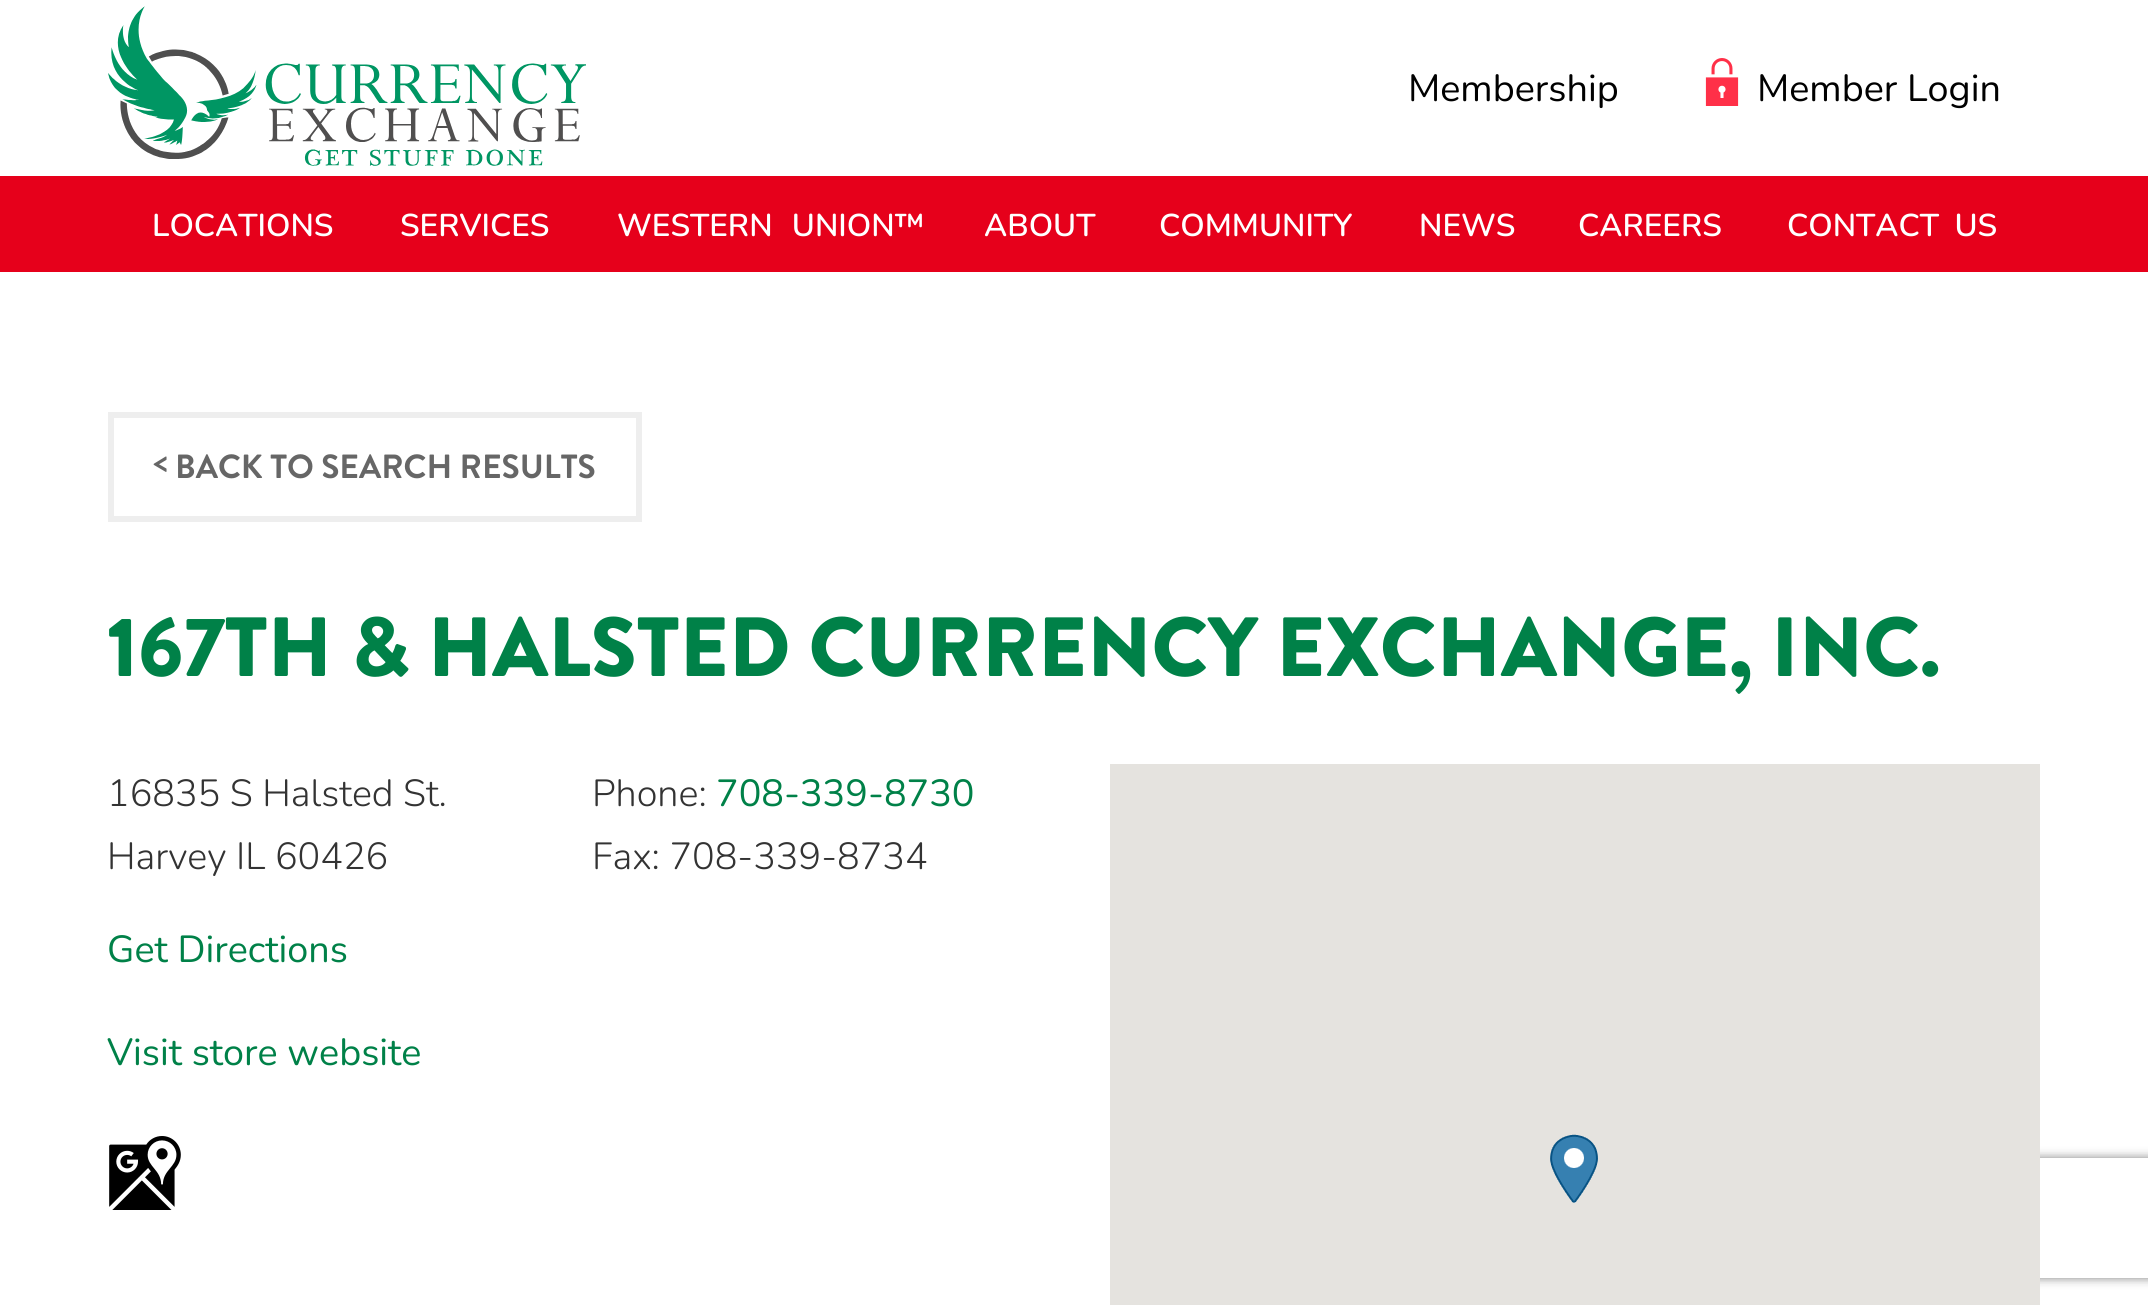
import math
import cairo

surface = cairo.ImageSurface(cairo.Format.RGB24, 2148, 1305)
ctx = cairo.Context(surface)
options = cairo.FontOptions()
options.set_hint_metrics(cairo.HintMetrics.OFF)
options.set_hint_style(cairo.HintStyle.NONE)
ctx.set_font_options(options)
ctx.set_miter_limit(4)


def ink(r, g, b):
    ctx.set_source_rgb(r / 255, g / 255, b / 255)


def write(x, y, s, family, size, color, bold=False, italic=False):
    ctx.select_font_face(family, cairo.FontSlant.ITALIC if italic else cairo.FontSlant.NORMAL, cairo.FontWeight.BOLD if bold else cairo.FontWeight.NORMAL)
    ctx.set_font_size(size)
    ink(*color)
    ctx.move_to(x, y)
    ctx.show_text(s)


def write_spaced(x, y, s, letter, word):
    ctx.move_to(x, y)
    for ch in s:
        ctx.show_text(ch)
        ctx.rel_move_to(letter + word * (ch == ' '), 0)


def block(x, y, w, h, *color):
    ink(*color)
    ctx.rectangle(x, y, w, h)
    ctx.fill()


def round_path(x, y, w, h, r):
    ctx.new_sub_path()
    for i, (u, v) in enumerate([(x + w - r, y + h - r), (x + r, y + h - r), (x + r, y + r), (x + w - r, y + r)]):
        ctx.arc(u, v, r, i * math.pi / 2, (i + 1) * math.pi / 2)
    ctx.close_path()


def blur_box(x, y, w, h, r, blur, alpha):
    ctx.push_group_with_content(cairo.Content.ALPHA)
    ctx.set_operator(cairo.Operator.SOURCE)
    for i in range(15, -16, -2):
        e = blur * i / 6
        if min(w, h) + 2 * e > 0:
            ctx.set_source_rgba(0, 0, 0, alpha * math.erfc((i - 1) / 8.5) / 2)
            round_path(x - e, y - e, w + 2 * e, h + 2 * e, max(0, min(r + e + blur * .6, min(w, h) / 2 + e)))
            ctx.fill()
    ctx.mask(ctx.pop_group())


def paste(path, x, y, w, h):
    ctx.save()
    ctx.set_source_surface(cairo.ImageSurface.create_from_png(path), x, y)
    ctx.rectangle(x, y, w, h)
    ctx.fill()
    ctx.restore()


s1 = dict(family="Nunito", size=37.75, color=(0, 0, 0))
s2 = dict(family="Nunito SemiBold", size=31.5, color=(255, 255, 255))
s3 = dict(family="Brandon Grotesque", size=33.5, color=(102, 102, 102), bold=True)
s4 = dict(family="Brandon Grotesque Black", size=83.8, color=(0, 129, 72))
s5 = dict(family="Nunito Light", size=37.75, color=(51, 51, 51))
s6 = dict(family="Nunito", size=37.75, color=(0, 129, 72))

ink(255, 255, 255)
ctx.paint()
paste("pic1.png", 108, 6, 478, 160)
write(1408, 101, "Membership", **s1)
paste("pic2.png", 1705, 58, 34, 48)
write(1757, 101, "Member Login", **s1)
block(0, 176, 2148, 96, 230, 0, 27)
write(152, 236, "LOCATIONS", **s2)
write(400, 236, "SERVICES", **s2)
write_spaced(617, 236, "WESTERN UNION™", 0, 11)
write(984, 236, "ABOUT", **s2)
write(1159, 236, "COMMUNITY", **s2)
write(1419, 236, "NEWS", **s2)
write(1578, 236, "CAREERS", **s2)
write_spaced(1787, 236, "CONTACT US", 0, 7)
ctx.rectangle(111, 415, 528, 104)
ink(238, 238, 238)
ctx.set_line_width(6)
ctx.stroke()
write(153, 472, "<", **s3)
write(175, 478, "BACK TO SEARCH RESULTS", **s3)
write(107, 676, "167TH & HALSTED CURRENCY EXCHANGE, INC.", **s4)
write(107, 806, "16835 S Halsted St.", **s5)
write(107, 869, "Harvey IL 60426", **s5)
write(107, 962, "Get Directions", **s6)
write(592, 806, "Phone:", **s5)
write(716, 806, "708-339-8730", **s6)
write(592, 869, "Fax: 708-339-8734", **s5)
write(107, 1065, "Visit store website", **s6)
paste("pic3.png", 109, 1136, 72, 74)
ctx.save()
ctx.set_fill_rule(cairo.FillRule.EVEN_ODD)
ctx.new_path()
ctx.move_to(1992, 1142)
ctx.line_to(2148, 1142)
ctx.line_to(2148, 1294)
ctx.line_to(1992, 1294)
ctx.close_path()
ctx.move_to(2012, 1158)
ctx.line_to(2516, 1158)
ctx.curve_to(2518, 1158, 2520, 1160, 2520, 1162)
ctx.line_to(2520, 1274)
ctx.curve_to(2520, 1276, 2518, 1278, 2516, 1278)
ctx.line_to(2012, 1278)
ctx.curve_to(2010, 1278, 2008, 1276, 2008, 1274)
ctx.line_to(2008, 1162)
ctx.curve_to(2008, 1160, 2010, 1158, 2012, 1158)
ctx.close_path()
ctx.clip()
ink(128, 128, 128)
blur_box(2008, 1158, 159, 120, 4, 5, 1)
ctx.restore()
block(1110, 764, 930, 541, 229, 227, 223)
paste("pic4.png", 1550, 1134, 48, 69)
surface.write_to_png("screenshot.png")
